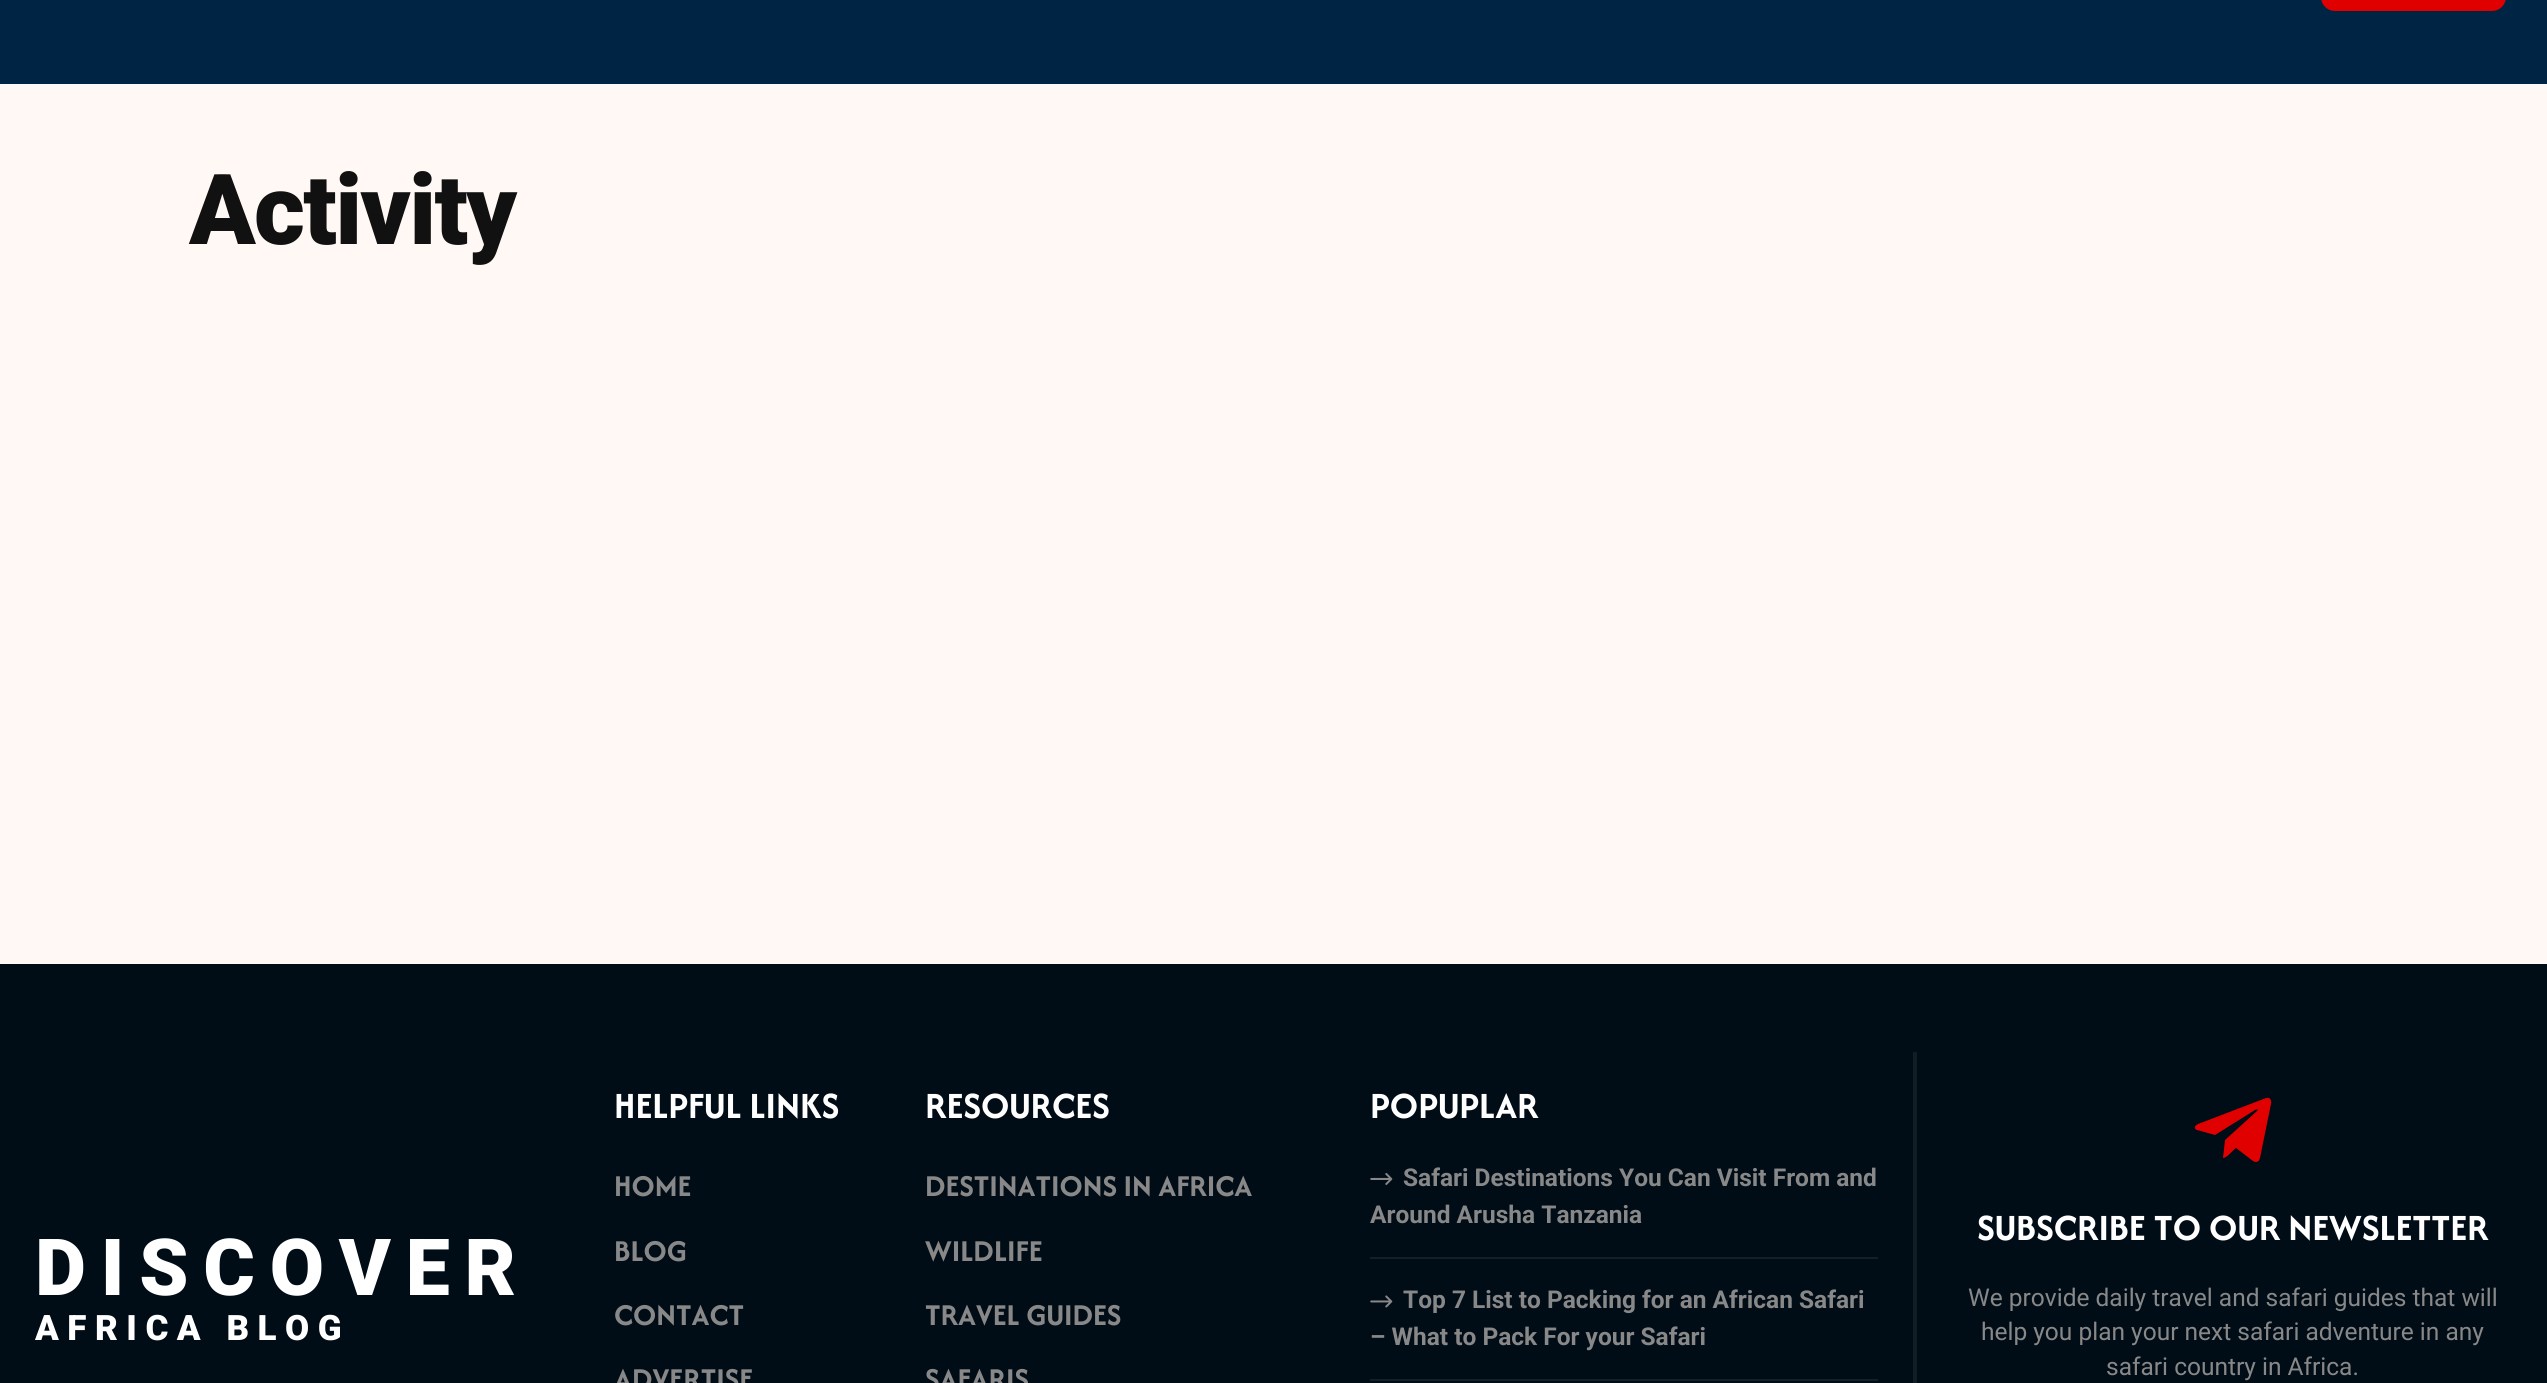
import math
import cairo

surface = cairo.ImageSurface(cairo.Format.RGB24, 2547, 1383)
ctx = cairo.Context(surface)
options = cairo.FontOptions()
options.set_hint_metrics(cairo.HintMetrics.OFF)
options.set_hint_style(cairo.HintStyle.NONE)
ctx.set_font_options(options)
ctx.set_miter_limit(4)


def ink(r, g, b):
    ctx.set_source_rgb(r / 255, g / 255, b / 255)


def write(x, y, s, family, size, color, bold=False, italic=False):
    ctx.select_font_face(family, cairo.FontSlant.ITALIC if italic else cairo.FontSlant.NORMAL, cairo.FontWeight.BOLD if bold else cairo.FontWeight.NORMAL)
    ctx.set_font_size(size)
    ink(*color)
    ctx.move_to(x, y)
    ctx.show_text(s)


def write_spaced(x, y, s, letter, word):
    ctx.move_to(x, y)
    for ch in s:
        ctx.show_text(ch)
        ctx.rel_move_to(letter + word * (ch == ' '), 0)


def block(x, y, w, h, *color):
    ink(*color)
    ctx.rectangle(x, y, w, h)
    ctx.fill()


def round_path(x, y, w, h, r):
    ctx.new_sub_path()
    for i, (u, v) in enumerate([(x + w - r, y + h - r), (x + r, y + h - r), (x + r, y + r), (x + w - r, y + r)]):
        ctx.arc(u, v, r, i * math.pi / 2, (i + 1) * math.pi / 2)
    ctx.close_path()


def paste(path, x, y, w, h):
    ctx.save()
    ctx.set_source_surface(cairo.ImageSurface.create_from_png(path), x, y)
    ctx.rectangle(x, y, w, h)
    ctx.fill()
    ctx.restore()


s1 = dict(family="Afacad", size=38.5, color=(255, 255, 255), bold=True)
s2 = dict(family="Afacad", size=31.5, color=(136, 136, 136), bold=True)
s3 = dict(family="Roboto", size=24.5, color=(136, 136, 136), bold=True)
s4 = dict(family="Roboto", size=24.5, color=(136, 136, 136))

ink(255, 248, 245)
ctx.paint()
block(0, 0, 2547, 84, 0, 36, 68)
ink(224, 0, 0)
round_path(2321, -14, 185, 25, 14)
ctx.fill()
ctx.select_font_face("Roboto Black")
ctx.set_font_size(98)
ink(17, 17, 17)
write_spaced(189, 244, "Activity", -1.75, 0)
block(0, 964, 2547, 419, 0, 12, 22)
ctx.set_font_size(78.75)
ink(255, 255, 255)
write_spaced(35, 1295, "DISCOVER", 14.75, 0)
ctx.set_font_size(35)
write_spaced(35, 1340, "AFRICA BLOG", 8.5, 0)
write(614, 1118, "HELPFUL LINKS", **s1)
write(614, 1196, "HOME", **s2)
write(614, 1261, "BLOG", **s2)
write(614, 1325, "CONTACT", **s2)
write(614, 1389, "ADVERTISE", **s2)
write(925, 1118, "RESOURCES", **s1)
write(925, 1196, "DESTINATIONS IN AFRICA", **s2)
write(925, 1261, "WILDLIFE", **s2)
write(925, 1325, "TRAVEL GUIDES", **s2)
write(925, 1389, "SAFARIS", **s2)
write(1370, 1118, "POPUPLAR", **s1)
paste("pic1.png", 1370, 1173, 23, 12)
write(1403, 1186, "Safari Destinations You Can Visit From and", **s3)
write(1370, 1223, "Around Arusha Tanzania", **s3)
block(1370, 1257, 508, 2, 20, 31, 39)
paste("pic2.png", 1370, 1295, 23, 13)
write(1403, 1308, "Top 7 List to Packing for an African Safari", **s3)
write(1370, 1345, "– What to Pack For your Safari", **s3)
block(1370, 1379, 508, 2, 20, 31, 39)
block(1913, 1052, 4, 331, 18, 28, 37)
ink(224, 0, 0)
ctx.new_path()
ctx.move_to(2271, 1104)
ctx.line_to(2260, 1158)
ctx.curve_to(2259, 1162, 2256, 1163, 2253, 1161)
ctx.line_to(2236, 1148)
ctx.curve_to(2233, 1150, 2227, 1158, 2223, 1158)
ctx.line_to(2225, 1140)
ctx.line_to(2257, 1111)
ctx.curve_to(2259, 1109, 2257, 1109, 2255, 1110)
ctx.line_to(2215, 1135)
ctx.line_to(2197, 1130)
ctx.curve_to(2194, 1129, 2194, 1126, 2198, 1124)
ctx.line_to(2266, 1098)
ctx.curve_to(2269, 1097, 2272, 1099, 2271, 1104)
ctx.close_path()
ctx.fill()
write(1977, 1240, "SUBSCRIBE TO OUR NEWSLETTER", **s1)
write(1968, 1306, "We provide daily travel and safari guides that will", **s4)
write(1981, 1340, "help you plan your next safari adventure in any", **s4)
write(2106, 1375, "safari country in Africa.", **s4)
surface.write_to_png("screenshot.png")
